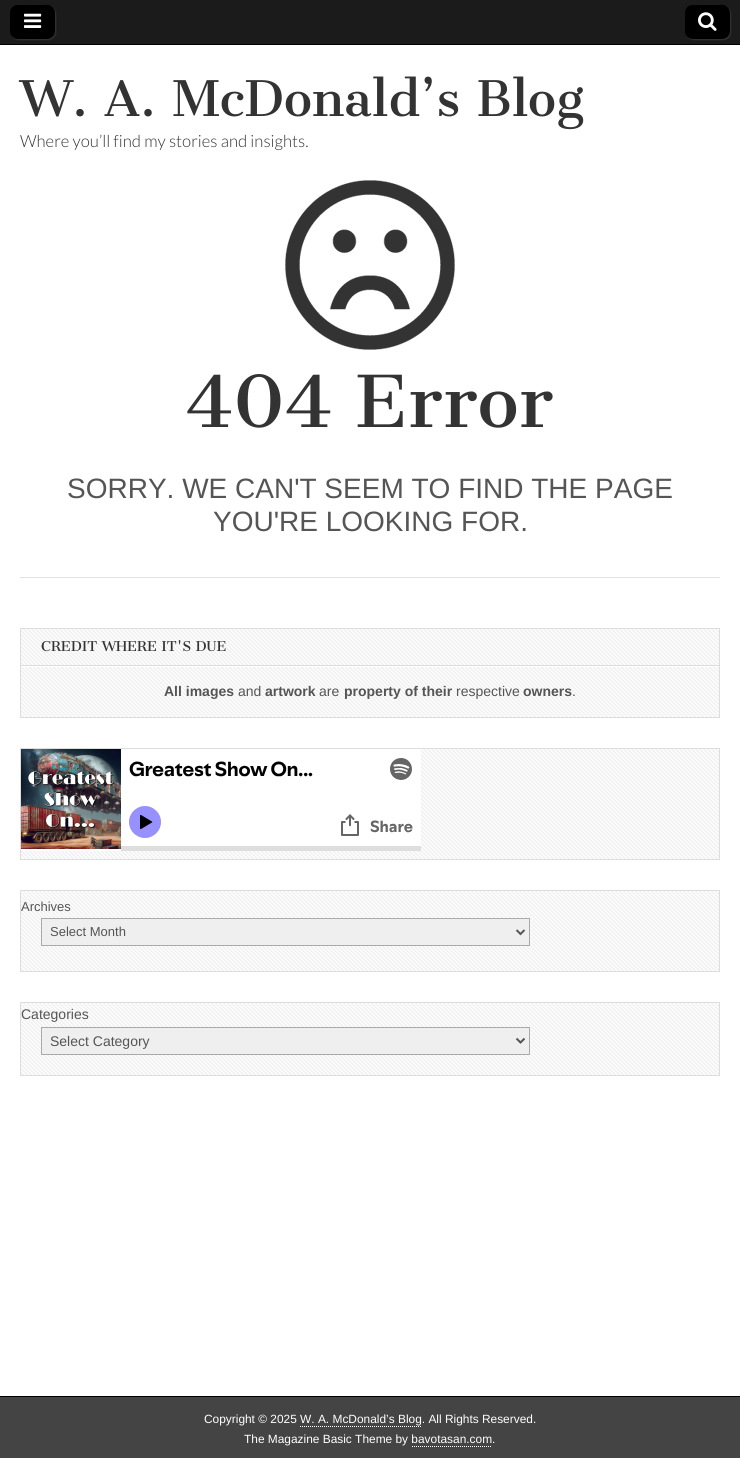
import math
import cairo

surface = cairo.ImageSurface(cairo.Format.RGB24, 740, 1458)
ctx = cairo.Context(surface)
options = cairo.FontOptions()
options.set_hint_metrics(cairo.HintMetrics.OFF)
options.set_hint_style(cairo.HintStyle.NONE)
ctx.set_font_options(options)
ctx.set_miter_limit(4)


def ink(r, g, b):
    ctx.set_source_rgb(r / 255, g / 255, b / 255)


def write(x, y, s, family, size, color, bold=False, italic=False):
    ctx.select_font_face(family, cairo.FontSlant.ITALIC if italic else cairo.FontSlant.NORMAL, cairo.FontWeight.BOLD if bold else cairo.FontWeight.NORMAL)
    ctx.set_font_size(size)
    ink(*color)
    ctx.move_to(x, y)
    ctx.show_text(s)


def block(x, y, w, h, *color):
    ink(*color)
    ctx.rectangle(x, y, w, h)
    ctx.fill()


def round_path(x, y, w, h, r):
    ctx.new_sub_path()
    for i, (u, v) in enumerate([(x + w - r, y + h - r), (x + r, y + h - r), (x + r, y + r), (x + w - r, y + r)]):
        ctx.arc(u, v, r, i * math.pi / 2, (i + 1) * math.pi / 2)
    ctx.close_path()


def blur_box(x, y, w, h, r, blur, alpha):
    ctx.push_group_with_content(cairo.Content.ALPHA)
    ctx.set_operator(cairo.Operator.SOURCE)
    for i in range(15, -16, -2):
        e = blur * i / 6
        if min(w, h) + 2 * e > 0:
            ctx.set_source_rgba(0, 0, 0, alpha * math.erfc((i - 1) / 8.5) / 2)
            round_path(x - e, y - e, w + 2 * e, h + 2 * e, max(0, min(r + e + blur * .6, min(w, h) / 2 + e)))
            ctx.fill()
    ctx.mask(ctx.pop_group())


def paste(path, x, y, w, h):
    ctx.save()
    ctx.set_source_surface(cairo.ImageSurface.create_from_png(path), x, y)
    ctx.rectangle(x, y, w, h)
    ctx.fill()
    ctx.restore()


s1 = dict(family="Cantata One", size=48, color=(51, 51, 51))
s2 = dict(family="Lato Light", size=16.75, color=(51, 51, 51))
s3 = dict(family="Cantata One", size=70, color=(51, 51, 51))
s4 = dict(family="Liberation Sans", size=28, color=(85, 85, 85))
s5 = dict(family="Cantata One", size=13.25, color=(51, 51, 51))
s6 = dict(family="Liberation Sans", size=14, color=(85, 85, 85), bold=True)
s7 = dict(family="Liberation Sans", size=14, color=(85, 85, 85))
s8 = dict(family="Liberation Sans", size=13, color=(85, 85, 85))
s9 = dict(family="Liberation Sans", size=11.9, color=(255, 255, 255))

ink(255, 255, 255)
ctx.paint()
block(0, 0, 740, 44, 27, 27, 27)
block(0, 44, 740, 1, 0, 0, 0)
ink(51, 51, 51)
blur_box(11, 6, 45, 34, 8, 0.5, 1)
ink(0, 0, 0)
round_path(10, 5, 45, 34, 8)
ctx.fill()
ctx.new_path()
ctx.move_to(19, 6)
ctx.line_to(50, 6)
ctx.line_to(52, 7)
ctx.curve_to(49, 4, 46, 5, 42, 5)
ctx.line_to(32, 5)
ctx.curve_to(10, 5, 10, 3, 10, 25)
ctx.curve_to(10, 29, 9, 34, 13, 37)
ctx.curve_to(10, 33, 10, 13, 13, 9)
ctx.curve_to(14, 7, 16, 6, 19, 6)
ctx.close_path()
ctx.fill()
paste("pic1.png", 24, 13, 18, 15)
ink(51, 51, 51)
blur_box(686, 6, 45, 34, 8, 0.5, 1)
ink(0, 0, 0)
round_path(685, 5, 45, 34, 8)
ctx.fill()
ctx.new_path()
ctx.move_to(694, 6)
ctx.line_to(725, 6)
ctx.line_to(727, 7)
ctx.curve_to(724, 4, 721, 5, 717, 5)
ctx.line_to(708, 5)
ctx.curve_to(685, 5, 685, 3, 685, 25)
ctx.curve_to(685, 29, 684, 34, 688, 37)
ctx.curve_to(685, 33, 685, 13, 688, 9)
ctx.curve_to(689, 7, 691, 6, 694, 6)
ctx.close_path()
ctx.fill()
paste("pic2.png", 698, 12, 19, 19)
write(20, 116, "W. A. McDonald’s Blog", **s1)
write(20, 147, "Where you’ll find my stories and insights.", **s2)
paste("pic3.png", 285, 180, 170, 170)
write(186, 427, "404 Error", **s3)
block(20, 577, 700, 1, 226, 226, 226)
write(67, 498, "SORRY. WE CAN'T SEEM TO FIND THE PAGE", **s4)
write(213, 531, "YOU'RE LOOKING FOR.", **s4)
paste("pic4.png", 21, 629, 698, 88)
ctx.rectangle(20.5, 628.5, 699, 89)
ink(221, 221, 221)
ctx.set_line_width(1)
ctx.stroke()
block(21, 666, 698, 1, 255, 255, 255)
block(21, 665, 698, 1, 221, 221, 221)
write(41, 651, "CREDIT WHERE IT'S DUE", **s5)
write(164, 696, "All images", **s6)
write(238, 696, "and", **s7)
write(265, 696, "artwork", **s6)
write(319, 696, "are", **s7)
write(344, 696, "property of their", **s6)
write(456, 696, "respective", **s7)
write(523, 696, "owners", **s6)
write(572, 696, ".", **s7)
paste("pic5.png", 21, 749, 698, 110)
ctx.rectangle(20.5, 748.5, 699, 111)
ink(221, 221, 221)
ctx.stroke()
paste("pic6.png", 21, 749, 400, 102)
paste("pic7.png", 21, 891, 698, 80)
ctx.rectangle(20.5, 890.5, 699, 81)
ctx.stroke()
write(21, 911, "Archives", **s8)
ink(239, 239, 239)
ctx.rectangle(41.5, 918.5, 488, 27)
ctx.fill_preserve()
ink(170, 170, 170)
ctx.stroke()
ctx.new_path()
ctx.move_to(516.5, 930)
ctx.line_to(520.5, 934)
ctx.line_to(524.5, 930)
ink(85, 85, 85)
ctx.set_line_width(2)
ctx.stroke()
write(50, 936, "Select Month", **s8)
paste("pic8.png", 21, 1003, 698, 72)
ctx.rectangle(20.5, 1002.5, 699, 73)
ink(221, 221, 221)
ctx.set_line_width(1)
ctx.stroke()
write(21, 1019, "Categories", **s7)
ink(239, 239, 239)
ctx.rectangle(41.5, 1027.5, 488, 27)
ctx.fill_preserve()
ink(170, 170, 170)
ctx.stroke()
ctx.new_path()
ctx.move_to(516.5, 1038.5)
ctx.line_to(520.5, 1042.5)
ctx.line_to(524.5, 1038.5)
ink(85, 85, 85)
ctx.set_line_width(2)
ctx.stroke()
write(50, 1046, "Select Category", **s7)
block(0, 1397, 740, 61, 68, 68, 68)
block(0, 1396, 740, 1, 0, 0, 0)
write(204, 1423, "Copyright © 2025 W. A. McDonald’s Blog. All Rights Reserved.", **s9)
ctx.new_path()
ctx.move_to(300, 1426.5)
ctx.line_to(422, 1426.5)
ctx.set_line_width(1)
ctx.set_dash([1, 1])
ctx.stroke()
write(244, 1443, "The Magazine Basic Theme by bavotasan.com.", **s9)
ctx.new_path()
ctx.move_to(412, 1446.5)
ctx.line_to(492, 1446.5)
ctx.stroke()
surface.write_to_png("screenshot.png")
